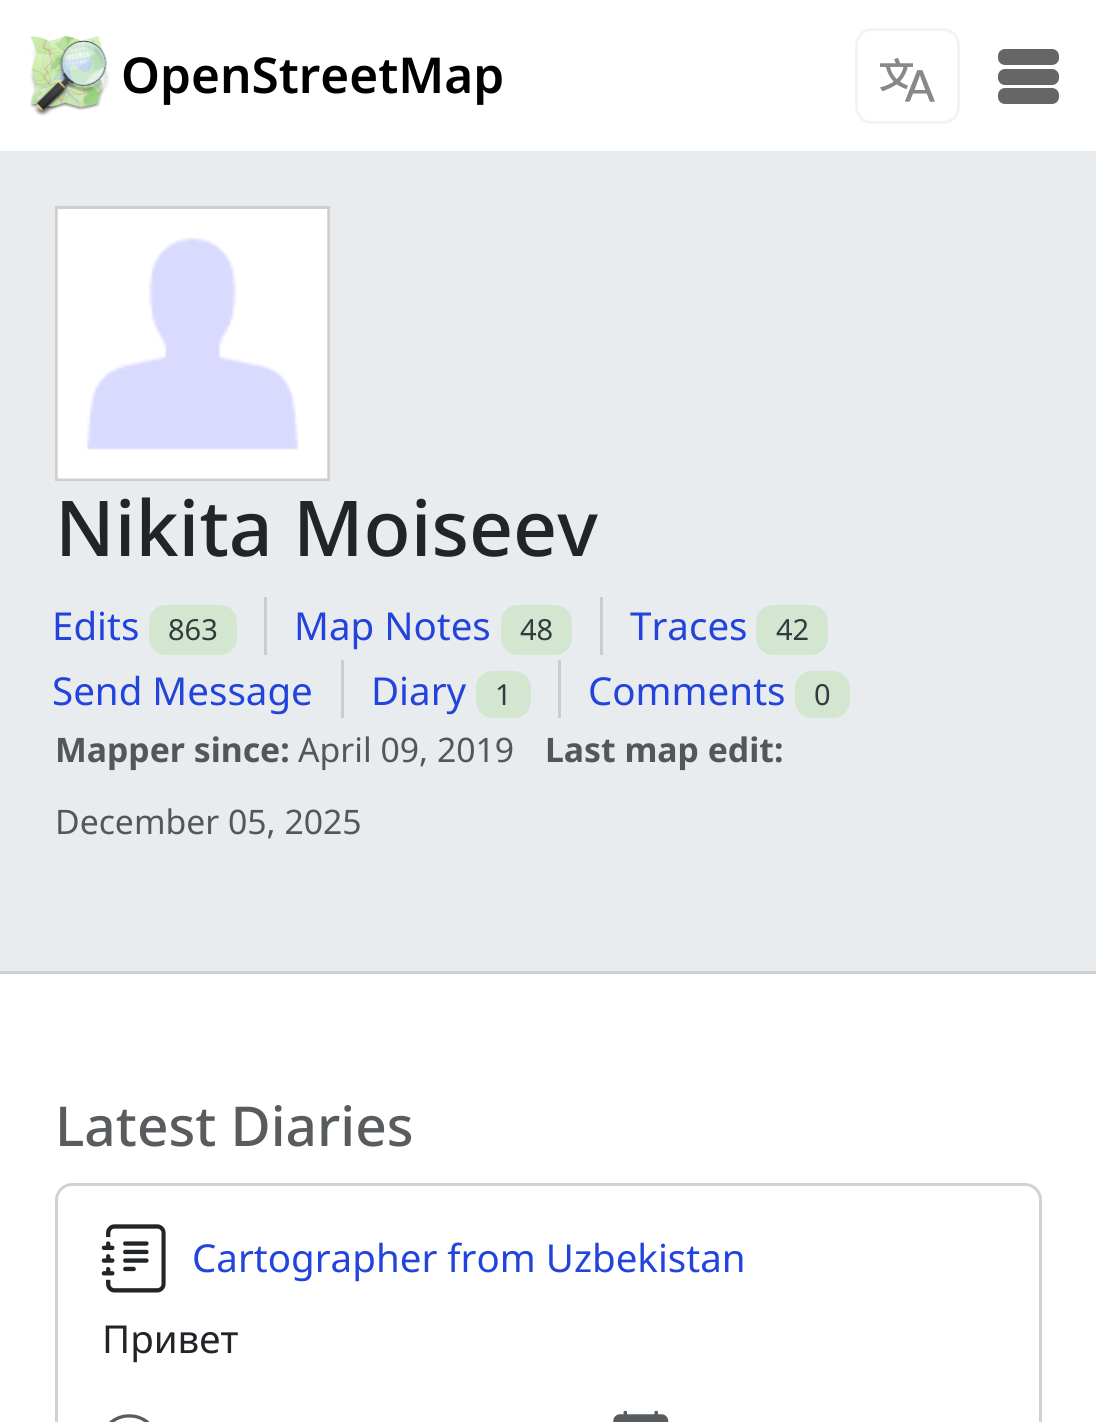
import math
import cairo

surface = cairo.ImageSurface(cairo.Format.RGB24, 1096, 1422)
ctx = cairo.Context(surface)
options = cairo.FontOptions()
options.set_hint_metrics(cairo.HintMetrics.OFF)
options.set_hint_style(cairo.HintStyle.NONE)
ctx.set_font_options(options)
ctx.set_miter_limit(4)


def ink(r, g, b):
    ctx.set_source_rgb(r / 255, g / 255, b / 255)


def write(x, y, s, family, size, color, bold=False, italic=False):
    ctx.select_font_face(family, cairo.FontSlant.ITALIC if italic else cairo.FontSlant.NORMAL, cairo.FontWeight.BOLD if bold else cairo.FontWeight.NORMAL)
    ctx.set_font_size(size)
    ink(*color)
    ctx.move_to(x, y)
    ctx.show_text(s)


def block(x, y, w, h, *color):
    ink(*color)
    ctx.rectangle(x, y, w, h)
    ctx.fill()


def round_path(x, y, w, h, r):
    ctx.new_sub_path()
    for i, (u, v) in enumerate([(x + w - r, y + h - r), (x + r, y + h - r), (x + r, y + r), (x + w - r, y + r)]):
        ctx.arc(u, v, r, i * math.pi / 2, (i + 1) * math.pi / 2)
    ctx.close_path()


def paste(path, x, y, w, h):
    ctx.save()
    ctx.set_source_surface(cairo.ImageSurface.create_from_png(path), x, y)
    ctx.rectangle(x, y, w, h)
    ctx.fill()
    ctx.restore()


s1 = dict(family="Noto Sans SemiBold", size=49.5, color=(0, 0, 0))
s2 = dict(family="Noto Sans Medium", size=77, color=(33, 37, 41))
s3 = dict(family="Noto Sans", size=38.5, color=(34, 68, 221))
s4 = dict(family="Noto Sans", size=29, color=(52, 58, 64))
s5 = dict(family="Noto Sans", size=33.75, color=(83, 87, 91), bold=True)
s6 = dict(family="Noto Sans", size=33.75, color=(83, 87, 91))
s7 = dict(family="Noto Sans Medium", size=55, color=(89, 92, 95))
s8 = dict(family="Noto Sans", size=38.5, color=(33, 37, 41))

ink(255, 255, 255)
ctx.paint()
paste("pic1.png", 30, 36, 79, 80)
write(121, 93, "OpenStreetMap", **s1)
round_path(856.5, 29.5, 102, 93, 15.5)
ink(243, 243, 243)
ctx.set_line_width(3)
ctx.stroke()
paste("pic2.png", 880, 57, 55, 45)
ink(102, 102, 102)
round_path(998, 49, 61, 16, 7)
ctx.fill()
round_path(998, 69, 61, 16, 7)
ctx.fill()
round_path(998, 88, 61, 16, 7)
ctx.fill()
block(0, 151, 1096, 820, 233, 236, 239)
block(0, 971, 1096, 3, 207, 207, 207)
ctx.rectangle(56.5, 207.5, 272, 272)
ctx.stroke()
paste("pic3.png", 57, 209, 271, 270)
write(55, 556, "Nikita Moiseev", **s2)
write(52, 640, "Edits", **s3)
ink(211, 230, 208)
round_path(149, 605, 88, 50, 17)
ctx.fill()
write(168, 640, "863", **s4)
block(264, 597, 3, 58, 204, 204, 204)
write(294, 640, "Map Notes", **s3)
ink(211, 230, 208)
round_path(501, 605, 71, 50, 17)
ctx.fill()
write(520, 640, "48", **s4)
block(600, 597, 3, 58, 204, 204, 204)
write(630, 640, "Traces", **s3)
ink(211, 230, 208)
round_path(756, 605, 72, 50, 17)
ctx.fill()
write(776, 640, "42", **s4)
write(52, 705, "Send Message", **s3)
block(341, 660, 3, 58, 204, 204, 204)
write(371, 705, "Diary", **s3)
ink(211, 230, 208)
round_path(476, 671, 55, 47, 17)
ctx.fill()
write(495, 705, "1", **s4)
block(558, 660, 3, 58, 204, 204, 204)
write(588, 705, "Comments", **s3)
ink(211, 230, 208)
round_path(795, 671, 55, 47, 17)
ctx.fill()
write(814, 705, "0", **s4)
write(55, 762, "Mapper since:", **s5)
write(298, 762, "April 09, 2019", **s6)
write(545, 762, "Last map edit:", **s5)
write(55, 834, "December 05, 2025", **s6)
write(55, 1146, "Latest Diaries", **s7)
round_path(56.5, 1184.5, 984, 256, 15.5)
ink(210, 210, 210)
ctx.stroke()
paste("pic4.png", 101, 1224, 65, 69)
write(192, 1272, "Cartographer from Uzbekistan", **s3)
write(102, 1353, "Привет", **s8)
paste("pic5.png", 109, 1414, 41, 8)
paste("pic6.png", 613, 1410, 56, 12)
surface.write_to_png("screenshot.png")
